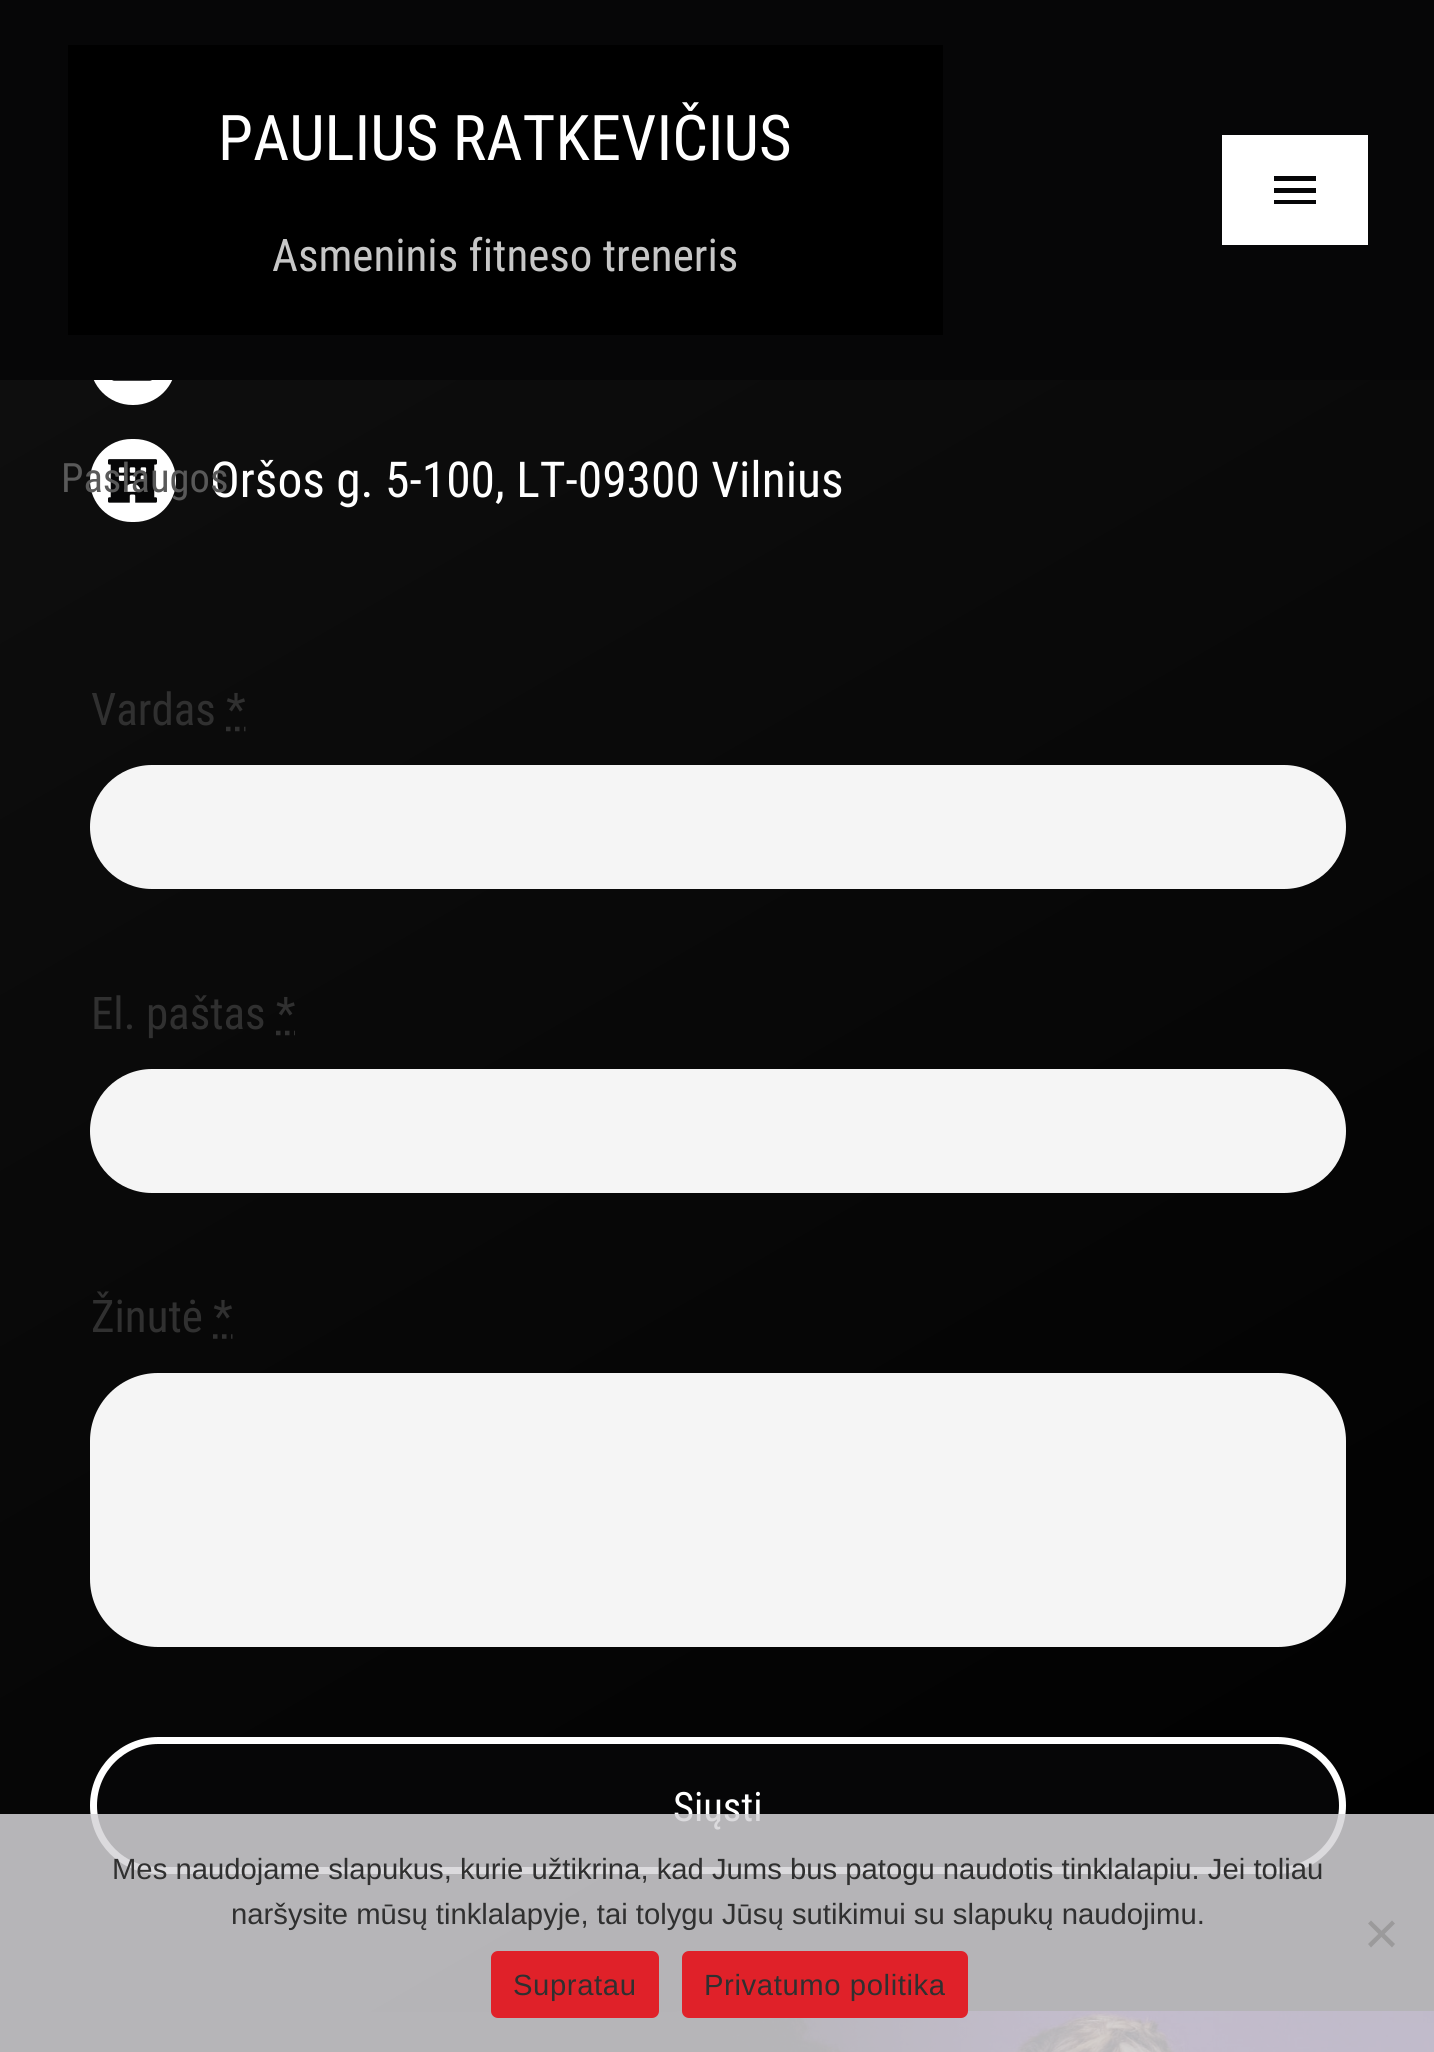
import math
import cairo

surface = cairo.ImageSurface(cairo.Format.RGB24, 1434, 2052)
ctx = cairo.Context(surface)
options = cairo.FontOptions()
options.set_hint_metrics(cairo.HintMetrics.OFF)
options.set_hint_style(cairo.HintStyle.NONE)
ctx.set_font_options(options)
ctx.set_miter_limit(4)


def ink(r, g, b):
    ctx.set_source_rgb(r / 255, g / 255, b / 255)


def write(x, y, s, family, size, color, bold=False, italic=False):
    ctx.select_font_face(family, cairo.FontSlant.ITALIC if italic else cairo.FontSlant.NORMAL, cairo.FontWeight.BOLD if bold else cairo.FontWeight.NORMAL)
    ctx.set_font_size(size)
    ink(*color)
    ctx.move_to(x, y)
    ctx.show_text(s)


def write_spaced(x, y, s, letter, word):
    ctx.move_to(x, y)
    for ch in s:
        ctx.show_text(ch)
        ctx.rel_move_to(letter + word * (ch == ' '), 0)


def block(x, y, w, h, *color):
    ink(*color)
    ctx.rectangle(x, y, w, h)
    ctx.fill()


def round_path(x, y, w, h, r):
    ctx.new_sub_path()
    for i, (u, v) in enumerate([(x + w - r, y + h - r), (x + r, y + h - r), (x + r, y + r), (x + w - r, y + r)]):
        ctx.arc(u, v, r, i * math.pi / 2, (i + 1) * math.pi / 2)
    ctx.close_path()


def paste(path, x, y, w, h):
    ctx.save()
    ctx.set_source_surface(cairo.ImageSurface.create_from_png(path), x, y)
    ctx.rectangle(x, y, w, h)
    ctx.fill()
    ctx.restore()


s1 = dict(family="Roboto Condensed", size=63, color=(255, 255, 255))
s2 = dict(family="Roboto Condensed", size=45, color=(199, 199, 199))
s3 = dict(family="Roboto Condensed", size=49.5, color=(255, 255, 255))
s4 = dict(family="Roboto Condensed", size=40.5, color=(89, 89, 89))
s5 = dict(family="Roboto Condensed", size=45, color=(48, 48, 48))
s6 = dict(family="Roboto Condensed", size=40.5, color=(255, 255, 255))
s7 = dict(family="Liberation Sans", size=29.25, color=(48, 48, 48))

ink(255, 255, 255)
ctx.paint()
gradient = cairo.LinearGradient(-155, -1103, 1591, 1922)
gradient.add_color_stop_rgba(0, 0.09, 0.09, 0.09, 1)
gradient.add_color_stop_rgba(1, 0, 0, 0, 1)
ctx.set_source(gradient)
ctx.rectangle(0, 380, 1434, 1632)
ctx.fill()
ink(255, 255, 255)
round_path(90, 320, 86, 85, 42.5)
ctx.fill()
block(0, 0, 1434, 380, 6, 6, 7)
block(68, 45, 875, 290, 0, 0, 0)
write(218, 160, "PAULIUS RATKEVIČIUS", **s1)
write(272, 271, "Asmeninis fitneso treneris", **s2)
block(1222, 135, 146, 110, 255, 255, 255)
ink(6, 6, 7)
ctx.new_path()
ctx.move_to(1274, 176)
ctx.line_to(1316, 176)
ctx.line_to(1316, 181)
ctx.line_to(1274, 181)
ctx.close_path()
ctx.move_to(1274, 193)
ctx.line_to(1274, 188)
ctx.line_to(1316, 188)
ctx.line_to(1316, 193)
ctx.close_path()
ctx.move_to(1274, 204)
ctx.line_to(1274, 200)
ctx.line_to(1316, 200)
ctx.line_to(1316, 204)
ctx.close_path()
ctx.fill()
ink(255, 255, 255)
round_path(90, 439, 86, 83, 41.5)
ctx.fill()
paste("pic2.png", 108, 459, 49, 44)
write(210, 497, "Oršos g. 5-100, LT-09300 Vilnius", **s3)
write(61, 492, "Paslaugos", **s4)
paste("pic1.png", 112, 380, 40, 1)
write(91, 725, "Vardas *", **s5)
ctx.new_path()
ctx.move_to(226, 729)
ctx.line_to(230.5, 729)
ctx.move_to(235, 729)
ctx.line_to(239.5, 729)
ctx.move_to(244, 729)
ctx.line_to(245.5, 729)
ctx.set_line_width(4.5)
ctx.stroke()
ink(245, 245, 245)
round_path(91, 766, 1254, 122, 61)
ctx.fill_preserve()
ctx.set_line_width(2)
ctx.stroke()
write(91, 1029, "El. paštas *", **s5)
ctx.new_path()
ctx.move_to(276, 1033)
ctx.line_to(280.5, 1033)
ctx.move_to(285, 1033)
ctx.line_to(289.5, 1033)
ctx.move_to(294, 1033)
ctx.line_to(295, 1033)
ctx.set_line_width(4.5)
ctx.stroke()
ink(245, 245, 245)
round_path(91, 1070, 1254, 122, 61)
ctx.fill_preserve()
ctx.set_line_width(2)
ctx.stroke()
write(91, 1332, "Žinutė *", **s5)
ctx.new_path()
ctx.move_to(213, 1336.5)
ctx.line_to(217.5, 1336.5)
ctx.move_to(222, 1336.5)
ctx.line_to(226.5, 1336.5)
ctx.move_to(231, 1336.5)
ctx.line_to(232.5, 1336.5)
ctx.set_line_width(4.5)
ctx.stroke()
ink(245, 245, 245)
round_path(91, 1374, 1254, 272, 67)
ctx.fill_preserve()
ctx.set_line_width(2)
ctx.stroke()
ink(6, 6, 7)
round_path(93.5, 1740.5, 1249, 130, 65)
ctx.fill_preserve()
ink(255, 255, 255)
ctx.set_line_width(7)
ctx.stroke()
write(673, 1821, "Siųsti", **s6)
block(0, 2012, 677, 40, 6, 6, 7)
paste("pic3.png", 677, 2011, 757, 41)
ctx.set_source_rgba(0.835, 0.831, 0.843, 0.85)
ctx.rectangle(0, 1814, 1434, 238)
ctx.fill()
write(112, 1879, "Mes naudojame slapukus, kurie užtikrina, kad Jums bus patogu naudotis tinklalapiu. Jei toliau", **s7)
write(231, 1924, "naršysite mūsų tinklalapyje, tai tolygu Jūsų sutikimui su slapukų naudojimu.", **s7)
ink(155, 154, 155)
ctx.new_path()
ctx.move_to(1392, 1920.5)
ctx.line_to(1395, 1923.5)
ctx.line_to(1371, 1947.5)
ctx.line_to(1368, 1944)
ctx.close_path()
ctx.fill()
ctx.new_path()
ctx.move_to(1368, 1923.5)
ctx.line_to(1371, 1920.5)
ctx.line_to(1395, 1944)
ctx.line_to(1392, 1947.5)
ctx.close_path()
ctx.fill()
ink(224, 33, 41)
round_path(491, 1951, 168, 67, 7)
ctx.fill()
ink(48, 48, 48)
write_spaced(513, 1995, "Supratau", 0.6, 0)
ink(224, 33, 41)
round_path(682, 1951, 286, 67, 7)
ctx.fill()
ink(48, 48, 48)
write_spaced(704, 1995, "Privatumo politika", 0.6, 0)
surface.write_to_png("screenshot.png")
